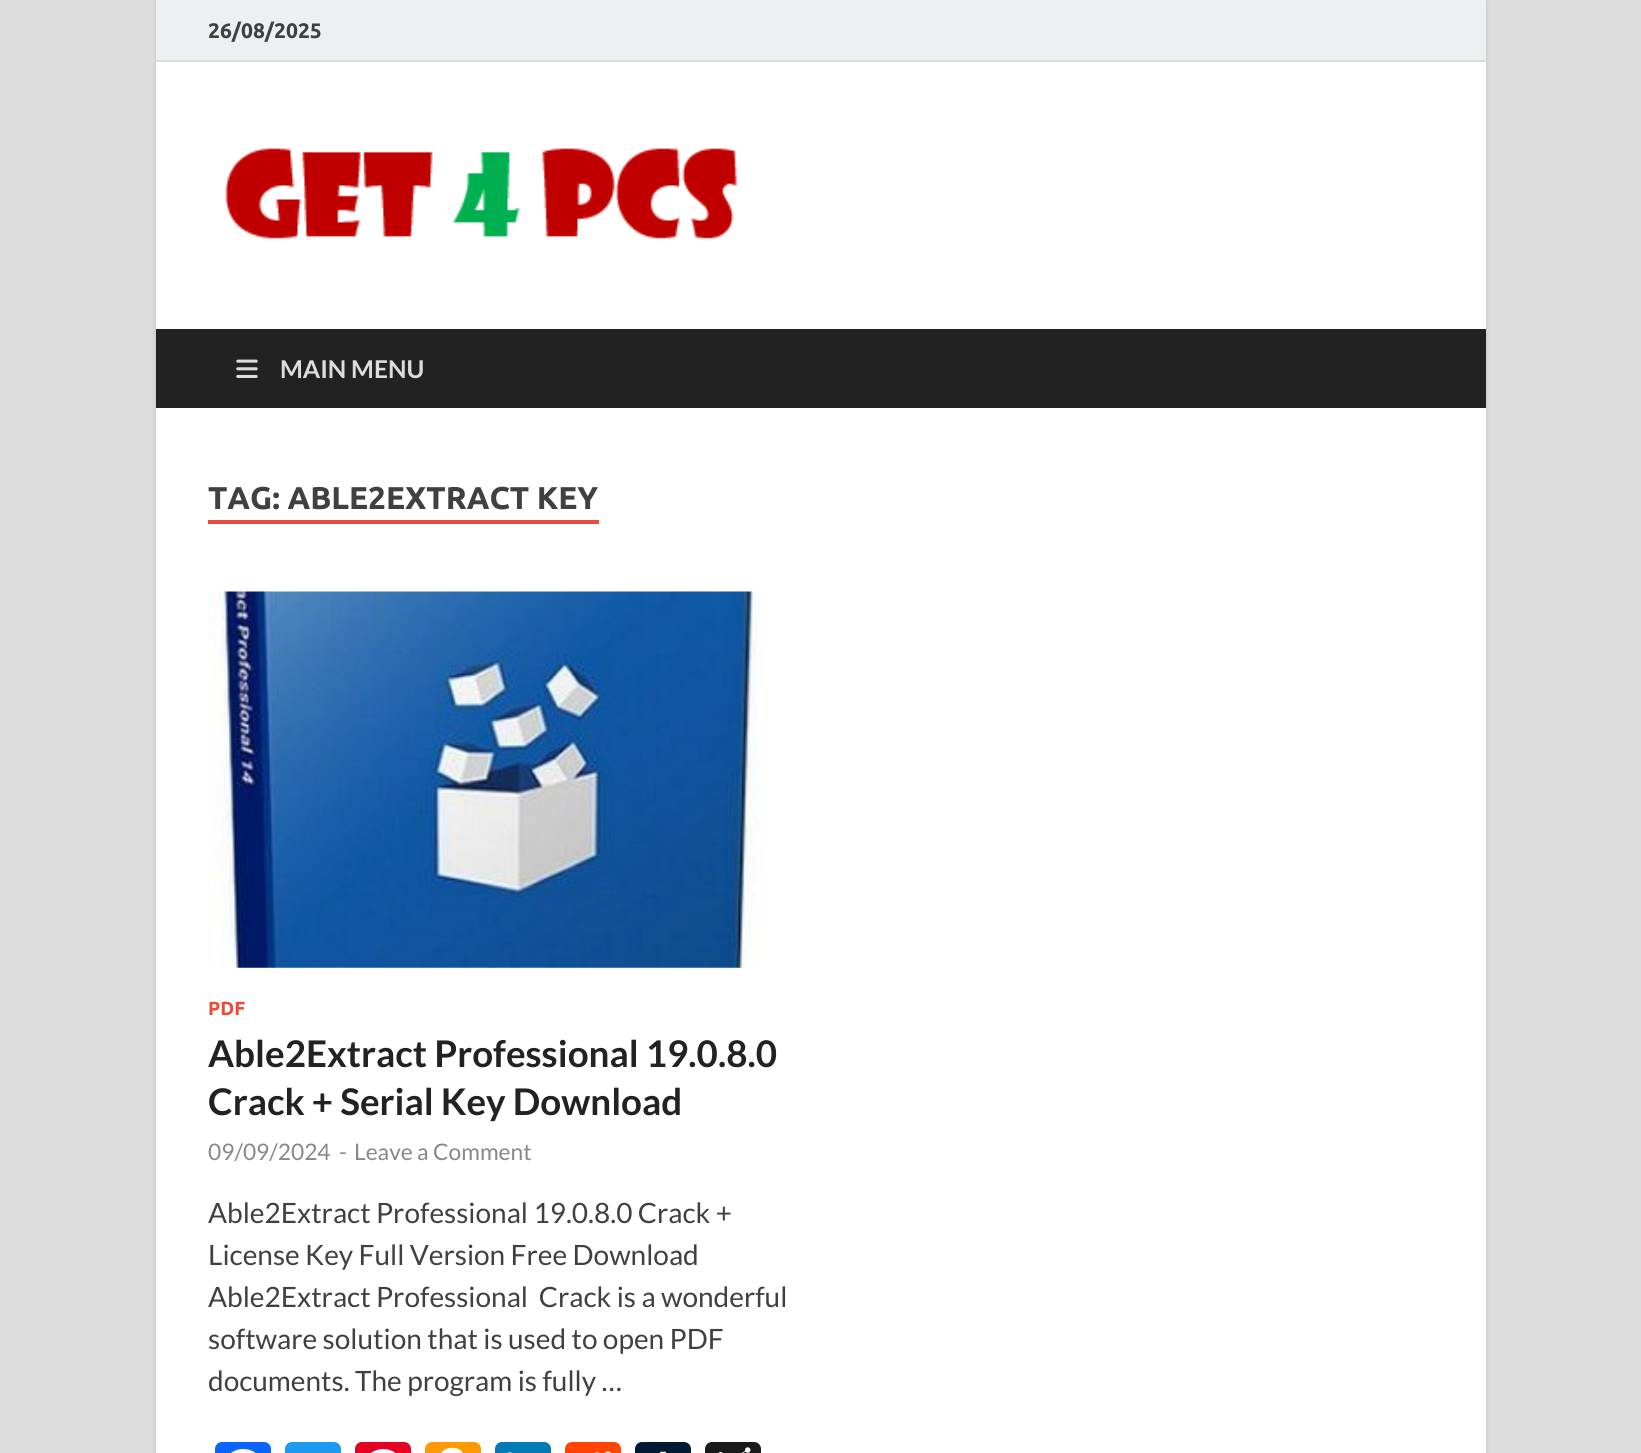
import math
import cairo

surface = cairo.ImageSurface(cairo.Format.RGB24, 1641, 1453)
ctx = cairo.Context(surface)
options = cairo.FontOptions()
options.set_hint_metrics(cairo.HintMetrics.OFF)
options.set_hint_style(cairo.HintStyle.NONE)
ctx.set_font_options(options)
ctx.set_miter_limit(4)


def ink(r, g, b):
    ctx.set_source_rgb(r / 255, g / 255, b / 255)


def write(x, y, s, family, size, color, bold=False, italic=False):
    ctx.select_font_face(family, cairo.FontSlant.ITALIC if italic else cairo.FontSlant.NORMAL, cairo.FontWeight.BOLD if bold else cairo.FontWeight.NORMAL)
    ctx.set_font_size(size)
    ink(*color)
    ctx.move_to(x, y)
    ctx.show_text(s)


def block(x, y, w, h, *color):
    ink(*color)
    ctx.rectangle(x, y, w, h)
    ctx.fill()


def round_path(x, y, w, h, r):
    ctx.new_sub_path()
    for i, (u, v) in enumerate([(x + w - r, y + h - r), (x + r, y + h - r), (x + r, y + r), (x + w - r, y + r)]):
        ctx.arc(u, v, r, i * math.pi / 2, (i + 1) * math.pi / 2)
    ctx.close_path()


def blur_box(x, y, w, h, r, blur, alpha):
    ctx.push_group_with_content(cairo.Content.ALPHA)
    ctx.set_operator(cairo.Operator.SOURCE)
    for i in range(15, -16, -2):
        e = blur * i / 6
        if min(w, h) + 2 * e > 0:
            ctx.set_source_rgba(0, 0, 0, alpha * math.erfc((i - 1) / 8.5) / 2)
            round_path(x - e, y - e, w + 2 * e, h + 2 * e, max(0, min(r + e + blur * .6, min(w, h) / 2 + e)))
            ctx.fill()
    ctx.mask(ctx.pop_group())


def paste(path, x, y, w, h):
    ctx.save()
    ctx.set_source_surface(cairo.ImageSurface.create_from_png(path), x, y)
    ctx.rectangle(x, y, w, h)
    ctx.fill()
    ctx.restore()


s1 = dict(family="Ubuntu", size=21, color=(64, 64, 64), bold=True)
s2 = dict(family="Lato", size=24.5, color=(221, 221, 221), bold=True)
s3 = dict(family="Ubuntu", size=31.5, color=(64, 64, 64), bold=True)
s4 = dict(family="Ubuntu", size=19, color=(231, 76, 60), bold=True)
s5 = dict(family="Lato", size=36.75, color=(34, 34, 34), bold=True)
s6 = dict(family="Lato", size=22.75, color=(136, 136, 136))
s7 = dict(family="Lato", size=28, color=(64, 64, 64))

ink(221, 221, 221)
ctx.paint()
ink(187, 187, 187)
blur_box(156, 0, 1330, 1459, 0, 2, 1)
block(156, 62, 1330, 1391, 255, 255, 255)
block(156, 0, 1330, 60, 236, 240, 241)
block(156, 60, 1330, 2, 221, 221, 221)
write(208, 38, "26/08/2025", **s1)
paste("pic1.png", 225, 148, 513, 91)
block(156, 329, 1330, 79, 34, 34, 34)
paste("pic2.png", 236, 359, 22, 19)
write(280, 378, "MAIN MENU", **s2)
write(208, 509, "TAG: ABLE2EXTRACT KEY", **s3)
block(208, 520, 391, 4, 231, 76, 60)
paste("pic3.png", 208, 591, 560, 377)
write(208, 1015, "PDF", **s4)
write(208, 1067, "Able2Extract Professional 19.0.8.0", **s5)
write(208, 1115, "Crack + Serial Key Download", **s5)
write(208, 1160, "09/09/2024", **s6)
write(339, 1160, "-", **s6)
write(354, 1160, "Leave a Comment", **s6)
write(208, 1223, "Able2Extract Professional 19.0.8.0 Crack +", **s7)
write(208, 1265, "License Key Full Version Free Download", **s7)
write(208, 1307, "Able2Extract Professional  Crack is a wonderful", **s7)
write(208, 1349, "software solution that is used to open PDF", **s7)
write(208, 1391, "documents. The program is fully …", **s7)
ink(8, 102, 255)
round_path(215, 1442, 56, 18, 7)
ctx.fill()
paste("pic4.png", 231, 1449, 25, 4)
ink(29, 155, 240)
round_path(285, 1442, 56, 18, 7)
ctx.fill()
block(321, 1452, 1, 1, 38, 159, 241)
ink(230, 0, 35)
round_path(355, 1442, 56, 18, 7)
ctx.fill()
paste("pic5.png", 371, 1449, 25, 4)
ink(255, 153, 0)
round_path(425, 1442, 56, 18, 7)
ctx.fill()
paste("pic6.png", 441, 1447, 22, 6)
ink(0, 123, 181)
round_path(495, 1442, 56, 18, 7)
ctx.fill()
paste("pic7.png", 507, 1452, 5, 1)
ink(255, 69, 0)
round_path(565, 1442, 56, 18, 7)
ctx.fill()
paste("pic8.png", 595, 1451, 16, 2)
ink(0, 25, 53)
round_path(635, 1442, 56, 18, 7)
ctx.fill()
paste("pic9.png", 660, 1451, 7, 2)
ink(26, 26, 26)
round_path(705, 1442, 56, 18, 7)
ctx.fill()
paste("pic10.png", 718, 1447, 33, 6)
surface.write_to_png("screenshot.png")
